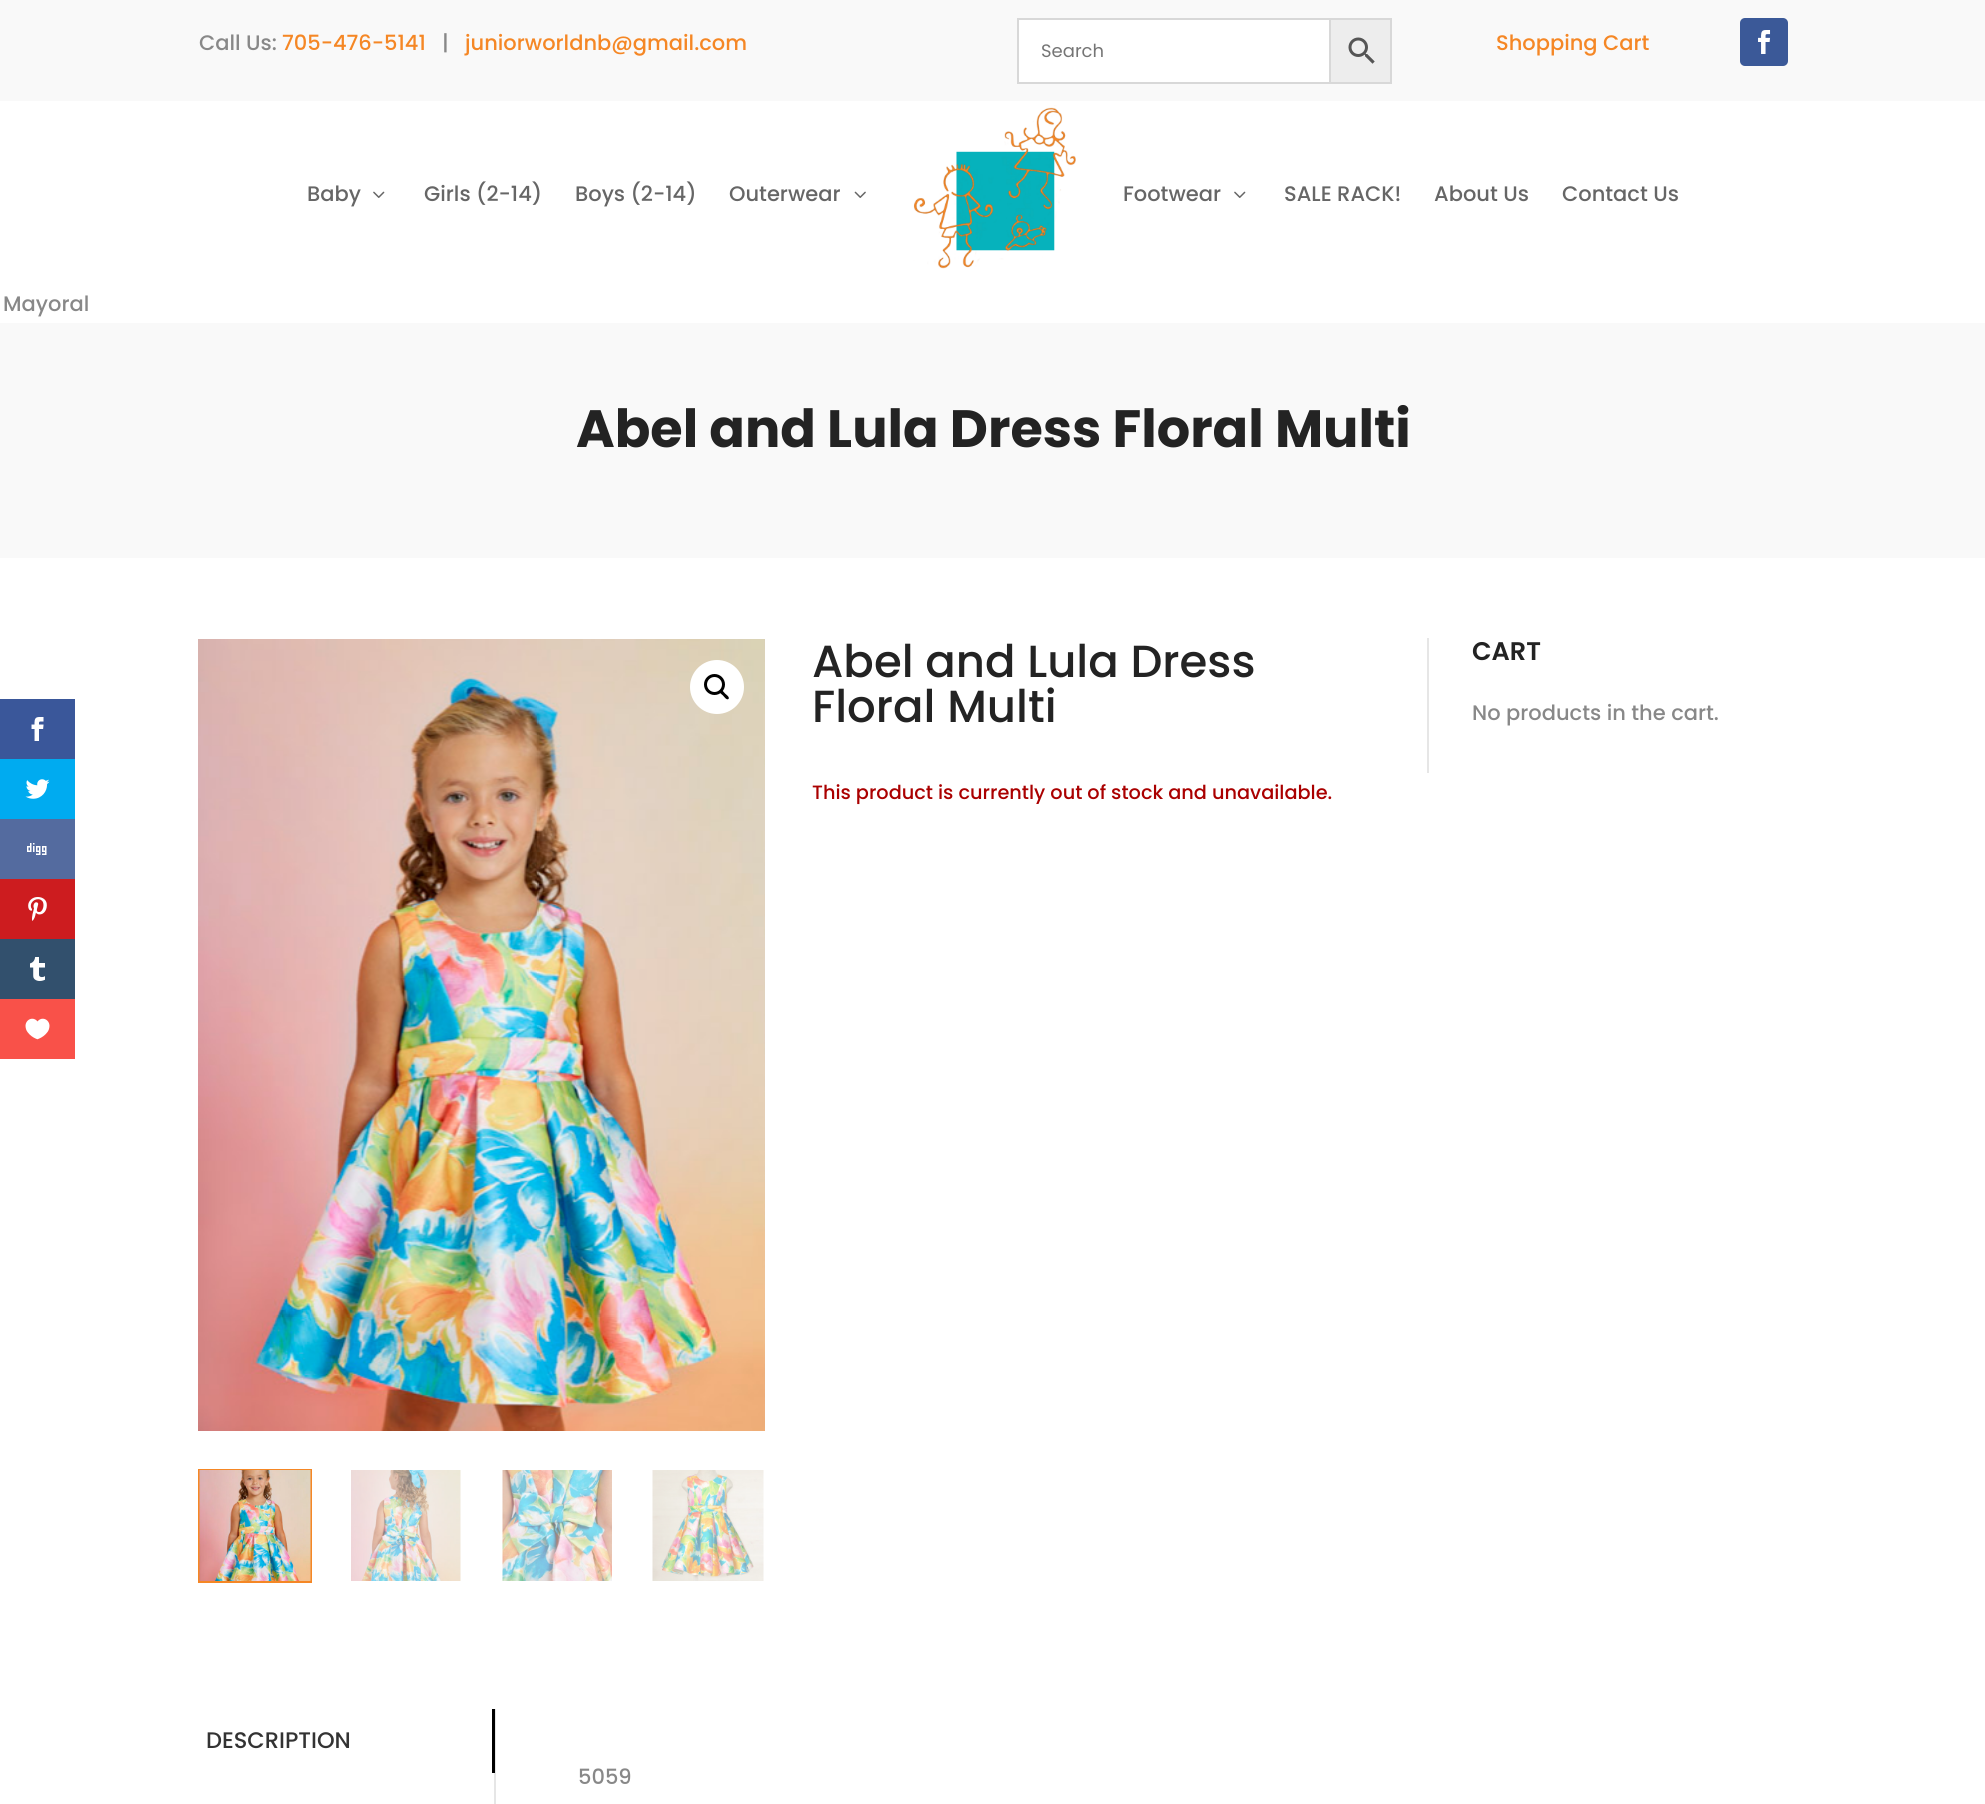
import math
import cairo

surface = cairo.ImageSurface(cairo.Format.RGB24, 1985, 1804)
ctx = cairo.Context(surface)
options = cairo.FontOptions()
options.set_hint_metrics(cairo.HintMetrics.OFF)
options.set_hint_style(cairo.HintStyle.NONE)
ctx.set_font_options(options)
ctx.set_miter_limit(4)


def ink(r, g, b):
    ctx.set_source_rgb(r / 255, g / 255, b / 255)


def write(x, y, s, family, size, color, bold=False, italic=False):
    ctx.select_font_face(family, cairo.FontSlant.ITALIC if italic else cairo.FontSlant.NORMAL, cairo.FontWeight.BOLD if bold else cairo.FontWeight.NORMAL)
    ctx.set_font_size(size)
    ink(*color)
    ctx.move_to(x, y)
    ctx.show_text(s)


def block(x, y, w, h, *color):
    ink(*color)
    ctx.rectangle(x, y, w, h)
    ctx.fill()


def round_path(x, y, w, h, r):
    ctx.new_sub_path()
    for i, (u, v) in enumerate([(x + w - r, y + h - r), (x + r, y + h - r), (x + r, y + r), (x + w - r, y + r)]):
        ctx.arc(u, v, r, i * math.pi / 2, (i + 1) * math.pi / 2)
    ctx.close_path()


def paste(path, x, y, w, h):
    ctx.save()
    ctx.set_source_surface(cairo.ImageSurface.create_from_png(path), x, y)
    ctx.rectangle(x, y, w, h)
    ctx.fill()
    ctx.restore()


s1 = dict(family="Poppins Medium", size=21, color=(136, 136, 136))
s2 = dict(family="Poppins Medium", size=21, color=(245, 135, 37))
s3 = dict(family="Poppins", size=18, color=(117, 117, 117))
s4 = dict(family="Poppins Medium", size=21, color=(102, 102, 102))
s5 = dict(family="Poppins", size=52.5, color=(35, 35, 35), bold=True)
s6 = dict(family="Poppins Medium", size=45, color=(35, 35, 35))
s7 = dict(family="Poppins Medium", size=19.3, color=(170, 0, 0))
s8 = dict(family="Poppins Medium", size=22.5, color=(51, 51, 51))
s9 = dict(family="Poppins SemiBold", size=25.5, color=(35, 35, 35))

ink(255, 255, 255)
ctx.paint()
block(0, 0, 1985, 101, 249, 249, 249)
write(199, 50, "Call Us:", **s1)
write(282, 50, "705-476-5141", **s2)
write(442, 50, "|", **s1)
write(465, 50, "juniorworldnb@gmail.com", **s2)
ink(237, 237, 237)
ctx.rectangle(1330, 19, 61, 64)
ctx.fill_preserve()
ink(216, 216, 216)
ctx.stroke()
ink(255, 255, 255)
ctx.rectangle(1018, 19, 312, 64)
ctx.fill_preserve()
ink(216, 216, 216)
ctx.stroke()
write(1041, 57, "Search", **s3)
paste("pic1.png", 1348, 37, 27, 27)
write(1496, 50, "Shopping Cart", **s2)
ink(59, 89, 152)
round_path(1740, 18, 48, 48, 5)
ctx.fill()
paste("pic2.png", 1758, 30, 13, 24)
write(307, 201, "Baby", **s4)
paste("pic3.png", 373, 191, 12, 7)
write(424, 201, "Girls (2-14)", **s4)
write(575, 201, "Boys (2-14)", **s4)
write(729, 201, "Outerwear", **s4)
paste("pic4.png", 854, 191, 12, 7)
paste("pic5.png", 913, 105, 163, 164)
write(1123, 201, "Footwear", **s4)
paste("pic3.png", 1234, 191, 12, 7)
write(1284, 201, "SALE RACK!", **s4)
write(1434, 201, "About Us", **s4)
write(1562, 201, "Contact Us", **s4)
write(3, 311, "Mayoral", **s1)
block(0, 323, 1985, 235, 249, 249, 249)
write(576, 447, "Abel and Lula Dress Floral Multi", **s5)
paste("pic7.png", 764, 639, 1, 792)
paste("pic6.png", 198, 639, 567, 792)
ink(255, 255, 255)
ctx.arc(717, 687, 27, 0, 2 * math.pi)
ctx.fill()
ctx.arc(714.5, 684.5, 9, 0, 2 * math.pi)
ink(0, 0, 0)
ctx.set_line_width(3)
ctx.stroke()
ctx.new_path()
ctx.move_to(720, 690.5)
ctx.curve_to(721.5, 688.5, 724, 692.5, 725, 693.5)
ctx.curve_to(726, 694.5, 730, 697, 728.5, 699)
ctx.curve_to(726.5, 700.5, 724, 696.5, 723, 695.5)
ctx.curve_to(722, 694.5, 718, 692, 720, 690.5)
ctx.close_path()
ctx.fill()
ctx.rectangle(199, 1470, 112, 112)
ink(245, 135, 37)
ctx.set_line_width(2)
ctx.stroke()
paste("pic8.png", 199, 1470, 112, 111)
paste("pic9.png", 351, 1470, 110, 111)
paste("pic10.png", 502, 1470, 110, 111)
paste("pic11.png", 652, 1470, 112, 111)
write(812, 677, "Abel and Lula Dress", **s6)
write(812, 722, "Floral Multi", **s6)
write(812, 799, "This product is currently out of stock and unavailable.", **s7)
write(206, 1748, "DESCRIPTION", **s8)
block(494, 1709, 2, 95, 230, 230, 230)
block(492, 1709, 3, 64, 0, 0, 0)
write(578, 1784, "5059", **s1)
block(1427, 638, 2, 135, 230, 230, 230)
write(1472, 660, "CART", **s9)
write(1472, 720, "No products in the cart.", **s1)
block(0, 699, 75, 60, 58, 87, 154)
paste("pic12.png", 31, 717, 13, 24)
block(0, 759, 75, 60, 0, 171, 240)
paste("pic13.png", 25, 779, 25, 20)
block(0, 819, 75, 60, 84, 107, 159)
paste("pic14.png", 27, 843, 20, 12)
block(0, 879, 75, 60, 205, 28, 31)
paste("pic15.png", 28, 897, 19, 24)
block(0, 939, 75, 60, 50, 80, 109)
paste("pic16.png", 30, 957, 15, 24)
block(0, 999, 75, 60, 249, 81, 73)
paste("pic17.png", 25, 1018, 25, 22)
surface.write_to_png("screenshot.png")
